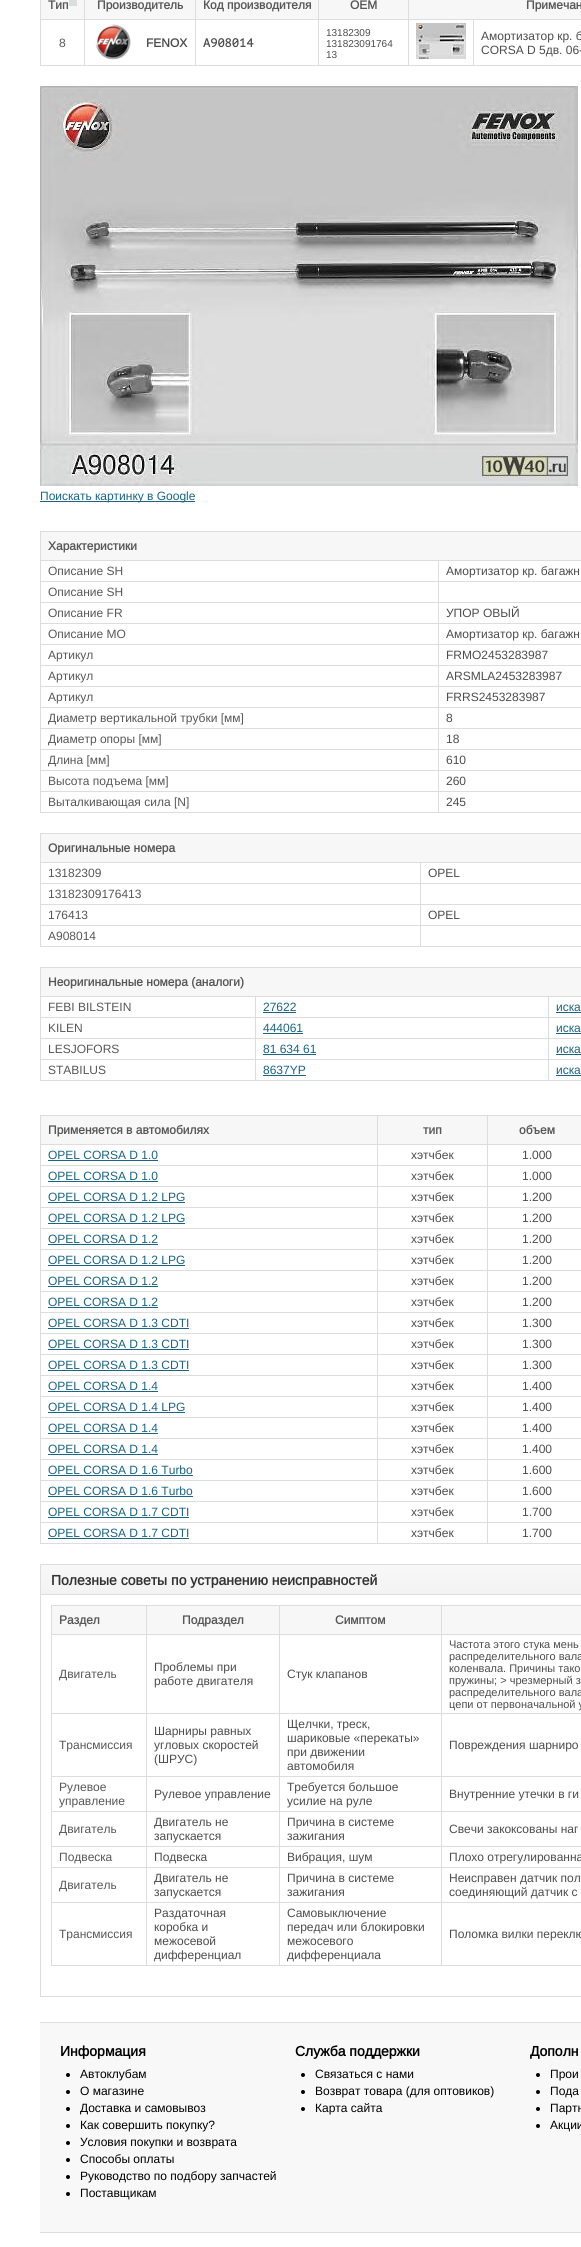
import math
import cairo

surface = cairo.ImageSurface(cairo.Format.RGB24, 581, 2247)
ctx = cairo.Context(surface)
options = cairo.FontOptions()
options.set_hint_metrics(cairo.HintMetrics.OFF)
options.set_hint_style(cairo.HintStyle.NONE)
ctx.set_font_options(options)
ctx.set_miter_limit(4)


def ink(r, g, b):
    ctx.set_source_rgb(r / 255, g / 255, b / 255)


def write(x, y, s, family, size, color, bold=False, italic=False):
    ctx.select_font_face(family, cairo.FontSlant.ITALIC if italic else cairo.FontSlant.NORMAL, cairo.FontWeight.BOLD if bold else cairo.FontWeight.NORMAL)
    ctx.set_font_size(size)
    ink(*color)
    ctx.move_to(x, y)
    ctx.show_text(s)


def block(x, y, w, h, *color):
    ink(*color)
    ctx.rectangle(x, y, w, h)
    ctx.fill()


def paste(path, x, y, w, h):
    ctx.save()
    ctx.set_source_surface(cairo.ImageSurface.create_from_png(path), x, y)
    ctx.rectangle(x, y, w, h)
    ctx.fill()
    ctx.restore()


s1 = dict(family="Arimo", size=12, color=(88, 88, 88), bold=True)
s2 = dict(family="Arimo", size=12, color=(88, 88, 88))
s3 = dict(family="Arimo", size=12, color=(77, 77, 77), bold=True)
s4 = dict(family="PT Mono", size=12, color=(77, 77, 77), bold=True)
s5 = dict(family="Arimo", size=10, color=(77, 77, 77))
s6 = dict(family="Arimo", size=12, color=(77, 77, 77))
s7 = dict(family="Arimo", size=12, color=(27, 100, 131))
s8 = dict(family="Arimo", size=14, color=(51, 51, 51), bold=True)
s9 = dict(family="Arimo", size=11, color=(77, 77, 77))
s10 = dict(family="Arimo", size=14, color=(0, 0, 0), bold=True)
s11 = dict(family="Arimo", size=12, color=(0, 0, 0))

ink(255, 255, 255)
ctx.paint()
block(40, 0, 1, 66, 221, 221, 221)
block(41, 0, 43, 19, 247, 247, 247)
block(473, 65, 108, 1, 221, 221, 221)
block(473, 19, 1, 47, 221, 221, 221)
block(408, 65, 66, 1, 221, 221, 221)
block(408, 19, 1, 47, 221, 221, 221)
block(408, 19, 173, 1, 221, 221, 221)
block(408, 0, 1, 20, 221, 221, 221)
block(318, 65, 91, 1, 221, 221, 221)
block(318, 19, 1, 47, 221, 221, 221)
block(318, 19, 91, 1, 221, 221, 221)
block(318, 0, 1, 20, 221, 221, 221)
block(195, 65, 124, 1, 221, 221, 221)
block(195, 19, 1, 47, 221, 221, 221)
block(195, 19, 124, 1, 221, 221, 221)
block(195, 0, 1, 20, 221, 221, 221)
block(84, 65, 112, 1, 221, 221, 221)
block(84, 19, 1, 47, 221, 221, 221)
block(84, 19, 112, 1, 221, 221, 221)
block(84, 0, 1, 20, 221, 221, 221)
block(40, 19, 45, 1, 221, 221, 221)
write(48, 9, "Тип", **s1)
block(69, 0, 8, 6, 219, 222, 225)
block(85, 0, 110, 19, 247, 247, 247)
write(97, 9, "Производитель", **s1)
block(196, 0, 122, 19, 247, 247, 247)
write(203, 9, "Код производителя", **s1)
block(319, 0, 89, 19, 247, 247, 247)
write(350, 9, "OEM", **s1)
block(409, 0, 172, 19, 247, 247, 247)
write(526, 9, "Примечан", **s1)
block(40, 65, 45, 1, 221, 221, 221)
write(59, 47, "8", **s2)
paste("pic1.png", 95, 24, 36, 36)
write(146, 47, "FENOX", **s3)
write(203, 47, "A908014", **s4)
write(326, 36, "13182309", **s5)
write(326, 47, "131823091764", **s5)
write(326, 58, "13", **s5)
paste("pic2.png", 416, 23, 50, 36)
write(481, 40, "Амортизатор кр. б", **s6)
write(481, 54, "CORSA D 5дв. 06-", **s6)
paste("pic3.png", 40, 86, 538, 400)
block(40, 501, 155, 1, 27, 100, 131)
write(40, 500, "Поискать картинку в Google", **s7)
block(40, 531, 541, 1, 221, 221, 221)
block(40, 531, 1, 282, 221, 221, 221)
block(41, 532, 540, 28, 247, 247, 247)
block(438, 812, 143, 1, 221, 221, 221)
block(438, 791, 1, 22, 221, 221, 221)
block(438, 791, 143, 1, 221, 221, 221)
block(438, 770, 1, 22, 221, 221, 221)
block(438, 770, 143, 1, 221, 221, 221)
block(438, 749, 1, 22, 221, 221, 221)
block(438, 749, 143, 1, 221, 221, 221)
block(438, 728, 1, 22, 221, 221, 221)
block(438, 728, 143, 1, 221, 221, 221)
block(438, 707, 1, 22, 221, 221, 221)
block(438, 707, 143, 1, 221, 221, 221)
block(438, 686, 1, 22, 221, 221, 221)
block(438, 686, 143, 1, 221, 221, 221)
block(438, 665, 1, 22, 221, 221, 221)
block(438, 665, 143, 1, 221, 221, 221)
block(438, 644, 1, 22, 221, 221, 221)
block(438, 644, 143, 1, 221, 221, 221)
block(438, 623, 1, 22, 221, 221, 221)
block(438, 623, 143, 1, 221, 221, 221)
block(438, 602, 1, 22, 221, 221, 221)
block(438, 602, 143, 1, 221, 221, 221)
block(438, 581, 1, 22, 221, 221, 221)
block(438, 581, 143, 1, 221, 221, 221)
block(438, 560, 1, 22, 221, 221, 221)
block(40, 560, 541, 1, 221, 221, 221)
write(48, 550, "Характеристики", **s1)
block(40, 581, 399, 1, 221, 221, 221)
write(48, 575, "Описание SH", **s2)
write(446, 575, "Амортизатор кр. багажн", **s6)
block(40, 602, 399, 1, 221, 221, 221)
write(48, 596, "Описание SH", **s2)
block(40, 623, 399, 1, 221, 221, 221)
write(48, 617, "Описание FR", **s2)
write(446, 617, "УПОР ОВЫЙ", **s6)
block(40, 644, 399, 1, 221, 221, 221)
write(48, 638, "Описание MO", **s2)
write(446, 638, "Амортизатор кр. багажн", **s6)
block(40, 665, 399, 1, 221, 221, 221)
write(48, 659, "Артикул", **s2)
write(446, 659, "FRMO2453283987", **s6)
block(40, 686, 399, 1, 221, 221, 221)
write(48, 680, "Артикул", **s2)
write(446, 680, "ARSMLA2453283987", **s6)
block(40, 707, 399, 1, 221, 221, 221)
write(48, 701, "Артикул", **s2)
write(446, 701, "FRRS2453283987", **s6)
block(40, 728, 399, 1, 221, 221, 221)
write(48, 722, "Диаметр вертикальной трубки [мм]", **s2)
write(446, 722, "8", **s6)
block(40, 749, 399, 1, 221, 221, 221)
write(48, 743, "Диаметр опоры [мм]", **s2)
write(446, 743, "18", **s6)
block(40, 770, 399, 1, 221, 221, 221)
write(48, 764, "Длина [мм]", **s2)
write(446, 764, "610", **s6)
block(40, 791, 399, 1, 221, 221, 221)
write(48, 785, "Высота подъема [мм]", **s2)
write(446, 785, "260", **s6)
block(40, 812, 399, 1, 221, 221, 221)
write(48, 806, "Выталкивающая сила [N]", **s2)
write(446, 806, "245", **s6)
block(40, 833, 541, 1, 221, 221, 221)
block(40, 833, 1, 114, 221, 221, 221)
block(41, 834, 540, 28, 247, 247, 247)
block(420, 946, 161, 1, 221, 221, 221)
block(420, 925, 1, 22, 221, 221, 221)
block(420, 925, 161, 1, 221, 221, 221)
block(420, 904, 1, 22, 221, 221, 221)
block(420, 904, 161, 1, 221, 221, 221)
block(420, 883, 1, 22, 221, 221, 221)
block(420, 883, 161, 1, 221, 221, 221)
block(420, 862, 1, 22, 221, 221, 221)
block(40, 862, 541, 1, 221, 221, 221)
write(48, 852, "Оригинальные номера", **s1)
block(40, 883, 381, 1, 221, 221, 221)
write(48, 877, "13182309", **s2)
write(428, 877, "OPEL", **s6)
block(40, 904, 381, 1, 221, 221, 221)
write(48, 898, "13182309176413", **s2)
block(40, 925, 381, 1, 221, 221, 221)
write(48, 919, "176413", **s2)
write(428, 919, "OPEL", **s6)
block(40, 946, 381, 1, 221, 221, 221)
write(48, 940, "A908014", **s2)
block(40, 967, 541, 1, 221, 221, 221)
block(40, 967, 1, 114, 221, 221, 221)
block(41, 968, 540, 28, 247, 247, 247)
block(548, 1080, 33, 1, 221, 221, 221)
block(548, 1059, 1, 22, 221, 221, 221)
block(548, 1059, 33, 1, 221, 221, 221)
block(548, 1038, 1, 22, 221, 221, 221)
block(548, 1038, 33, 1, 221, 221, 221)
block(548, 1017, 1, 22, 221, 221, 221)
block(548, 1017, 33, 1, 221, 221, 221)
block(548, 996, 1, 22, 221, 221, 221)
block(255, 1080, 294, 1, 221, 221, 221)
block(255, 1059, 1, 22, 221, 221, 221)
block(255, 1059, 294, 1, 221, 221, 221)
block(255, 1038, 1, 22, 221, 221, 221)
block(255, 1038, 294, 1, 221, 221, 221)
block(255, 1017, 1, 22, 221, 221, 221)
block(255, 1017, 294, 1, 221, 221, 221)
block(255, 996, 1, 22, 221, 221, 221)
block(40, 996, 541, 1, 221, 221, 221)
write(48, 986, "Неоригинальные номера (аналоги)", **s1)
block(40, 1017, 216, 1, 221, 221, 221)
write(48, 1011, "FEBI BILSTEIN", **s2)
write(263, 1011, "27622", **s7)
block(263, 1012, 33, 1, 27, 100, 131)
write(556, 1011, "иска", **s7)
block(556, 1012, 25, 1, 27, 100, 131)
block(40, 1038, 216, 1, 221, 221, 221)
write(48, 1032, "KILEN", **s2)
write(263, 1032, "444061", **s7)
block(263, 1033, 40, 1, 27, 100, 131)
write(556, 1032, "иска", **s7)
block(556, 1033, 25, 1, 27, 100, 131)
block(40, 1059, 216, 1, 221, 221, 221)
write(48, 1053, "LESJOFORS", **s2)
write(263, 1053, "81 634 61", **s7)
block(263, 1054, 53, 1, 27, 100, 131)
write(556, 1053, "иска", **s7)
block(556, 1054, 25, 1, 27, 100, 131)
block(40, 1080, 216, 1, 221, 221, 221)
write(48, 1074, "STABILUS", **s2)
write(263, 1074, "8637YP", **s7)
block(263, 1075, 43, 1, 27, 100, 131)
write(556, 1074, "иска", **s7)
block(556, 1075, 25, 1, 27, 100, 131)
block(40, 1115, 541, 1, 221, 221, 221)
block(40, 1115, 1, 429, 221, 221, 221)
block(41, 1116, 336, 28, 247, 247, 247)
block(487, 1543, 94, 1, 221, 221, 221)
block(487, 1522, 1, 22, 221, 221, 221)
block(487, 1522, 94, 1, 221, 221, 221)
block(487, 1501, 1, 22, 221, 221, 221)
block(487, 1501, 94, 1, 221, 221, 221)
block(487, 1480, 1, 22, 221, 221, 221)
block(487, 1480, 94, 1, 221, 221, 221)
block(487, 1459, 1, 22, 221, 221, 221)
block(487, 1459, 94, 1, 221, 221, 221)
block(487, 1438, 1, 22, 221, 221, 221)
block(487, 1438, 94, 1, 221, 221, 221)
block(487, 1417, 1, 22, 221, 221, 221)
block(487, 1417, 94, 1, 221, 221, 221)
block(487, 1396, 1, 22, 221, 221, 221)
block(487, 1396, 94, 1, 221, 221, 221)
block(487, 1375, 1, 22, 221, 221, 221)
block(487, 1375, 94, 1, 221, 221, 221)
block(487, 1354, 1, 22, 221, 221, 221)
block(487, 1354, 94, 1, 221, 221, 221)
block(487, 1333, 1, 22, 221, 221, 221)
block(487, 1333, 94, 1, 221, 221, 221)
block(487, 1312, 1, 22, 221, 221, 221)
block(487, 1312, 94, 1, 221, 221, 221)
block(487, 1291, 1, 22, 221, 221, 221)
block(487, 1291, 94, 1, 221, 221, 221)
block(487, 1270, 1, 22, 221, 221, 221)
block(487, 1270, 94, 1, 221, 221, 221)
block(487, 1249, 1, 22, 221, 221, 221)
block(487, 1249, 94, 1, 221, 221, 221)
block(487, 1228, 1, 22, 221, 221, 221)
block(487, 1228, 94, 1, 221, 221, 221)
block(487, 1207, 1, 22, 221, 221, 221)
block(487, 1207, 94, 1, 221, 221, 221)
block(487, 1186, 1, 22, 221, 221, 221)
block(487, 1186, 94, 1, 221, 221, 221)
block(487, 1165, 1, 22, 221, 221, 221)
block(487, 1165, 94, 1, 221, 221, 221)
block(487, 1144, 1, 22, 221, 221, 221)
block(487, 1144, 94, 1, 221, 221, 221)
block(487, 1115, 1, 30, 221, 221, 221)
block(377, 1543, 111, 1, 221, 221, 221)
block(377, 1522, 1, 22, 221, 221, 221)
block(377, 1522, 111, 1, 221, 221, 221)
block(377, 1501, 1, 22, 221, 221, 221)
block(377, 1501, 111, 1, 221, 221, 221)
block(377, 1480, 1, 22, 221, 221, 221)
block(377, 1480, 111, 1, 221, 221, 221)
block(377, 1459, 1, 22, 221, 221, 221)
block(377, 1459, 111, 1, 221, 221, 221)
block(377, 1438, 1, 22, 221, 221, 221)
block(377, 1438, 111, 1, 221, 221, 221)
block(377, 1417, 1, 22, 221, 221, 221)
block(377, 1417, 111, 1, 221, 221, 221)
block(377, 1396, 1, 22, 221, 221, 221)
block(377, 1396, 111, 1, 221, 221, 221)
block(377, 1375, 1, 22, 221, 221, 221)
block(377, 1375, 111, 1, 221, 221, 221)
block(377, 1354, 1, 22, 221, 221, 221)
block(377, 1354, 111, 1, 221, 221, 221)
block(377, 1333, 1, 22, 221, 221, 221)
block(377, 1333, 111, 1, 221, 221, 221)
block(377, 1312, 1, 22, 221, 221, 221)
block(377, 1312, 111, 1, 221, 221, 221)
block(377, 1291, 1, 22, 221, 221, 221)
block(377, 1291, 111, 1, 221, 221, 221)
block(377, 1270, 1, 22, 221, 221, 221)
block(377, 1270, 111, 1, 221, 221, 221)
block(377, 1249, 1, 22, 221, 221, 221)
block(377, 1249, 111, 1, 221, 221, 221)
block(377, 1228, 1, 22, 221, 221, 221)
block(377, 1228, 111, 1, 221, 221, 221)
block(377, 1207, 1, 22, 221, 221, 221)
block(377, 1207, 111, 1, 221, 221, 221)
block(377, 1186, 1, 22, 221, 221, 221)
block(377, 1186, 111, 1, 221, 221, 221)
block(377, 1165, 1, 22, 221, 221, 221)
block(377, 1165, 111, 1, 221, 221, 221)
block(377, 1144, 1, 22, 221, 221, 221)
block(377, 1144, 111, 1, 221, 221, 221)
block(377, 1115, 1, 30, 221, 221, 221)
block(40, 1144, 338, 1, 221, 221, 221)
write(48, 1134, "Применяется в автомобилях", **s1)
block(378, 1116, 109, 28, 247, 247, 247)
write(423, 1134, "тип", **s1)
block(488, 1116, 93, 28, 247, 247, 247)
write(519, 1134, "объем", **s1)
block(40, 1165, 338, 1, 221, 221, 221)
write(48, 1159, "OPEL CORSA D 1.0", **s7)
block(48, 1160, 110, 1, 27, 100, 131)
write(411, 1159, "хэтчбек", **s6)
write(522, 1159, "1.000", **s6)
block(40, 1186, 338, 1, 221, 221, 221)
write(48, 1180, "OPEL CORSA D 1.0", **s7)
block(48, 1181, 110, 1, 27, 100, 131)
write(411, 1180, "хэтчбек", **s6)
write(522, 1180, "1.000", **s6)
block(40, 1207, 338, 1, 221, 221, 221)
write(48, 1201, "OPEL CORSA D 1.2 LPG", **s7)
block(48, 1202, 137, 1, 27, 100, 131)
write(411, 1201, "хэтчбек", **s6)
write(522, 1201, "1.200", **s6)
block(40, 1228, 338, 1, 221, 221, 221)
write(48, 1222, "OPEL CORSA D 1.2 LPG", **s7)
block(48, 1223, 137, 1, 27, 100, 131)
write(411, 1222, "хэтчбек", **s6)
write(522, 1222, "1.200", **s6)
block(40, 1249, 338, 1, 221, 221, 221)
write(48, 1243, "OPEL CORSA D 1.2", **s7)
block(48, 1244, 110, 1, 27, 100, 131)
write(411, 1243, "хэтчбек", **s6)
write(522, 1243, "1.200", **s6)
block(40, 1270, 338, 1, 221, 221, 221)
write(48, 1264, "OPEL CORSA D 1.2 LPG", **s7)
block(48, 1265, 137, 1, 27, 100, 131)
write(411, 1264, "хэтчбек", **s6)
write(522, 1264, "1.200", **s6)
block(40, 1291, 338, 1, 221, 221, 221)
write(48, 1285, "OPEL CORSA D 1.2", **s7)
block(48, 1286, 110, 1, 27, 100, 131)
write(411, 1285, "хэтчбек", **s6)
write(522, 1285, "1.200", **s6)
block(40, 1312, 338, 1, 221, 221, 221)
write(48, 1306, "OPEL CORSA D 1.2", **s7)
block(48, 1307, 110, 1, 27, 100, 131)
write(411, 1306, "хэтчбек", **s6)
write(522, 1306, "1.200", **s6)
block(40, 1333, 338, 1, 221, 221, 221)
write(48, 1327, "OPEL CORSA D 1.3 CDTI", **s7)
block(48, 1328, 141, 1, 27, 100, 131)
write(411, 1327, "хэтчбек", **s6)
write(522, 1327, "1.300", **s6)
block(40, 1354, 338, 1, 221, 221, 221)
write(48, 1348, "OPEL CORSA D 1.3 CDTI", **s7)
block(48, 1349, 141, 1, 27, 100, 131)
write(411, 1348, "хэтчбек", **s6)
write(522, 1348, "1.300", **s6)
block(40, 1375, 338, 1, 221, 221, 221)
write(48, 1369, "OPEL CORSA D 1.3 CDTI", **s7)
block(48, 1370, 141, 1, 27, 100, 131)
write(411, 1369, "хэтчбек", **s6)
write(522, 1369, "1.300", **s6)
block(40, 1396, 338, 1, 221, 221, 221)
write(48, 1390, "OPEL CORSA D 1.4", **s7)
block(48, 1391, 110, 1, 27, 100, 131)
write(411, 1390, "хэтчбек", **s6)
write(522, 1390, "1.400", **s6)
block(40, 1417, 338, 1, 221, 221, 221)
write(48, 1411, "OPEL CORSA D 1.4 LPG", **s7)
block(48, 1412, 137, 1, 27, 100, 131)
write(411, 1411, "хэтчбек", **s6)
write(522, 1411, "1.400", **s6)
block(40, 1438, 338, 1, 221, 221, 221)
write(48, 1432, "OPEL CORSA D 1.4", **s7)
block(48, 1433, 110, 1, 27, 100, 131)
write(411, 1432, "хэтчбек", **s6)
write(522, 1432, "1.400", **s6)
block(40, 1459, 338, 1, 221, 221, 221)
write(48, 1453, "OPEL CORSA D 1.4", **s7)
block(48, 1454, 110, 1, 27, 100, 131)
write(411, 1453, "хэтчбек", **s6)
write(522, 1453, "1.400", **s6)
block(40, 1480, 338, 1, 221, 221, 221)
write(48, 1474, "OPEL CORSA D 1.6 Turbo", **s7)
block(48, 1475, 145, 1, 27, 100, 131)
write(411, 1474, "хэтчбек", **s6)
write(522, 1474, "1.600", **s6)
block(40, 1501, 338, 1, 221, 221, 221)
write(48, 1495, "OPEL CORSA D 1.6 Turbo", **s7)
block(48, 1496, 145, 1, 27, 100, 131)
write(411, 1495, "хэтчбек", **s6)
write(522, 1495, "1.600", **s6)
block(40, 1522, 338, 1, 221, 221, 221)
write(48, 1516, "OPEL CORSA D 1.7 CDTI", **s7)
block(48, 1517, 141, 1, 27, 100, 131)
write(411, 1516, "хэтчбек", **s6)
write(522, 1516, "1.700", **s6)
block(40, 1543, 338, 1, 221, 221, 221)
write(48, 1537, "OPEL CORSA D 1.7 CDTI", **s7)
block(48, 1538, 141, 1, 27, 100, 131)
write(411, 1537, "хэтчбек", **s6)
write(522, 1537, "1.700", **s6)
paste("pic4.png", 41, 1565, 540, 29)
ctx.rectangle(40.5, 1564.5, 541, 30)
ink(219, 222, 225)
ctx.set_line_width(1)
ctx.stroke()
write(51, 1585, "Полезные советы по устранению неисправностей", **s8)
block(40, 1996, 541, 1, 219, 222, 225)
block(40, 1595, 1, 402, 219, 222, 225)
block(51, 1605, 530, 1, 221, 221, 221)
block(51, 1605, 1, 361, 221, 221, 221)
block(52, 1606, 94, 28, 247, 247, 247)
block(441, 1965, 140, 1, 221, 221, 221)
block(441, 1902, 1, 64, 221, 221, 221)
block(441, 1902, 140, 1, 221, 221, 221)
block(441, 1867, 1, 36, 221, 221, 221)
block(441, 1867, 140, 1, 221, 221, 221)
block(441, 1846, 1, 22, 221, 221, 221)
block(441, 1846, 140, 1, 221, 221, 221)
block(441, 1811, 1, 36, 221, 221, 221)
block(441, 1811, 140, 1, 221, 221, 221)
block(441, 1776, 1, 36, 221, 221, 221)
block(441, 1776, 140, 1, 221, 221, 221)
block(441, 1713, 1, 64, 221, 221, 221)
block(441, 1713, 140, 1, 221, 221, 221)
block(441, 1634, 1, 80, 221, 221, 221)
block(441, 1634, 140, 1, 221, 221, 221)
block(441, 1605, 1, 30, 221, 221, 221)
block(279, 1965, 163, 1, 221, 221, 221)
block(279, 1902, 1, 64, 221, 221, 221)
block(279, 1902, 163, 1, 221, 221, 221)
block(279, 1867, 1, 36, 221, 221, 221)
block(279, 1867, 163, 1, 221, 221, 221)
block(279, 1846, 1, 22, 221, 221, 221)
block(279, 1846, 163, 1, 221, 221, 221)
block(279, 1811, 1, 36, 221, 221, 221)
block(279, 1811, 163, 1, 221, 221, 221)
block(279, 1776, 1, 36, 221, 221, 221)
block(279, 1776, 163, 1, 221, 221, 221)
block(279, 1713, 1, 64, 221, 221, 221)
block(279, 1713, 163, 1, 221, 221, 221)
block(279, 1634, 1, 80, 221, 221, 221)
block(279, 1634, 163, 1, 221, 221, 221)
block(279, 1605, 1, 30, 221, 221, 221)
block(146, 1965, 134, 1, 221, 221, 221)
block(146, 1902, 1, 64, 221, 221, 221)
block(146, 1902, 134, 1, 221, 221, 221)
block(146, 1867, 1, 36, 221, 221, 221)
block(146, 1867, 134, 1, 221, 221, 221)
block(146, 1846, 1, 22, 221, 221, 221)
block(146, 1846, 134, 1, 221, 221, 221)
block(146, 1811, 1, 36, 221, 221, 221)
block(146, 1811, 134, 1, 221, 221, 221)
block(146, 1776, 1, 36, 221, 221, 221)
block(146, 1776, 134, 1, 221, 221, 221)
block(146, 1713, 1, 64, 221, 221, 221)
block(146, 1713, 134, 1, 221, 221, 221)
block(146, 1634, 1, 80, 221, 221, 221)
block(146, 1634, 134, 1, 221, 221, 221)
block(146, 1605, 1, 30, 221, 221, 221)
block(51, 1634, 96, 1, 221, 221, 221)
write(59, 1624, "Раздел", **s1)
block(147, 1606, 132, 28, 247, 247, 247)
write(182, 1624, "Подраздел", **s1)
block(280, 1606, 161, 28, 247, 247, 247)
write(335, 1624, "Симптом", **s1)
block(442, 1606, 139, 28, 247, 247, 247)
block(51, 1713, 96, 1, 221, 221, 221)
write(59, 1678, "Двигатель", **s2)
write(154, 1671, "Проблемы при", **s6)
write(154, 1685, "работе двигателя", **s6)
write(287, 1678, "Стук клапанов", **s6)
write(449, 1648, "Частота этого стука мень", **s9)
write(449, 1660, "распределительного вала", **s9)
write(449, 1672, "коленвала. Причины тако", **s9)
write(449, 1684, "пружины; > чрезмерный з", **s9)
write(449, 1696, "распределительного вала", **s9)
write(449, 1708, "цепи от первоначальной у", **s9)
block(51, 1776, 96, 1, 221, 221, 221)
write(59, 1749, "Трансмиссия", **s2)
write(154, 1735, "Шарниры равных", **s6)
write(154, 1749, "угловых скоростей", **s6)
write(154, 1763, "(ШРУС)", **s6)
write(287, 1728, "Щелчки, треск,", **s6)
write(287, 1742, "шариковые «перекаты»", **s6)
write(287, 1756, "при движении", **s6)
write(287, 1770, "автомобиля", **s6)
write(449, 1749, "Повреждения шарниро", **s6)
block(51, 1811, 96, 1, 221, 221, 221)
write(59, 1791, "Рулевое", **s2)
write(59, 1805, "управление", **s2)
write(154, 1798, "Рулевое управление", **s6)
write(287, 1791, "Требуется большое", **s6)
write(287, 1805, "усилие на руле", **s6)
write(449, 1798, "Внутренние утечки в ги", **s6)
block(51, 1846, 96, 1, 221, 221, 221)
write(59, 1833, "Двигатель", **s2)
write(154, 1826, "Двигатель не", **s6)
write(154, 1840, "запускается", **s6)
write(287, 1826, "Причина в системе", **s6)
write(287, 1840, "зажигания", **s6)
write(449, 1833, "Свечи закоксованы наг", **s6)
block(51, 1867, 96, 1, 221, 221, 221)
write(59, 1861, "Подвеска", **s2)
write(154, 1861, "Подвеска", **s6)
write(287, 1861, "Вибрация, шум", **s6)
write(449, 1861, "Плохо отрегулированна", **s6)
block(51, 1902, 96, 1, 221, 221, 221)
write(59, 1889, "Двигатель", **s2)
write(154, 1882, "Двигатель не", **s6)
write(154, 1896, "запускается", **s6)
write(287, 1882, "Причина в системе", **s6)
write(287, 1896, "зажигания", **s6)
write(449, 1882, "Неисправен датчик пол", **s6)
write(449, 1896, "соединяющий датчик с", **s6)
block(51, 1965, 96, 1, 221, 221, 221)
write(59, 1938, "Трансмиссия", **s2)
write(154, 1917, "Раздаточная", **s6)
write(154, 1931, "коробка и", **s6)
write(154, 1945, "межосевой", **s6)
write(154, 1959, "дифференциал", **s6)
write(287, 1917, "Самовыключение", **s6)
write(287, 1931, "передач или блокировки", **s6)
write(287, 1945, "межосевого", **s6)
write(287, 1959, "дифференциала", **s6)
write(449, 1938, "Поломка вилки переклю", **s6)
block(40, 2023, 541, 209, 248, 248, 248)
block(40, 2022, 541, 1, 219, 222, 225)
block(40, 2232, 541, 1, 219, 222, 225)
write(60, 2056, "Информация", **s10)
ctx.new_path()
ctx.arc(68, 2075, 2, 0, 2 * math.pi)
ctx.fill()
write(80, 2078, "Автоклубам", **s11)
ctx.new_path()
ctx.arc(68, 2092, 2, 0, 2 * math.pi)
ctx.fill()
write(80, 2095, "О магазине", **s11)
ctx.new_path()
ctx.arc(68, 2109, 2, 0, 2 * math.pi)
ctx.fill()
write(80, 2112, "Доставка и самовывоз", **s11)
ctx.new_path()
ctx.arc(68, 2126, 2, 0, 2 * math.pi)
ctx.fill()
write(80, 2129, "Как совершить покупку?", **s11)
ctx.new_path()
ctx.arc(68, 2143, 2, 0, 2 * math.pi)
ctx.fill()
write(80, 2146, "Условия покупки и возврата", **s11)
ctx.new_path()
ctx.arc(68, 2160, 2, 0, 2 * math.pi)
ctx.fill()
write(80, 2163, "Способы оплаты", **s11)
ctx.new_path()
ctx.arc(68, 2177, 2, 0, 2 * math.pi)
ctx.fill()
write(80, 2180, "Руководство по подбору запчастей", **s11)
ctx.new_path()
ctx.arc(68, 2194, 2, 0, 2 * math.pi)
ctx.fill()
write(80, 2197, "Поставщикам", **s11)
write(295, 2056, "Служба поддержки", **s10)
ctx.new_path()
ctx.arc(303, 2075, 2, 0, 2 * math.pi)
ctx.fill()
write(315, 2078, "Связаться с нами", **s11)
ctx.new_path()
ctx.arc(303, 2092, 2, 0, 2 * math.pi)
ctx.fill()
write(315, 2095, "Возврат товара (для оптовиков)", **s11)
ctx.new_path()
ctx.arc(303, 2109, 2, 0, 2 * math.pi)
ctx.fill()
write(315, 2112, "Карта сайта", **s11)
write(530, 2056, "Дополн", **s10)
ctx.new_path()
ctx.arc(538, 2075, 2, 0, 2 * math.pi)
ctx.fill()
write(550, 2078, "Прои", **s11)
ctx.new_path()
ctx.arc(538, 2092, 2, 0, 2 * math.pi)
ctx.fill()
write(550, 2095, "Пода", **s11)
ctx.new_path()
ctx.arc(538, 2109, 2, 0, 2 * math.pi)
ctx.fill()
write(550, 2112, "Партн", **s11)
ctx.new_path()
ctx.arc(538, 2126, 2, 0, 2 * math.pi)
ctx.fill()
write(550, 2129, "Акции", **s11)
surface.write_to_png("screenshot.png")
